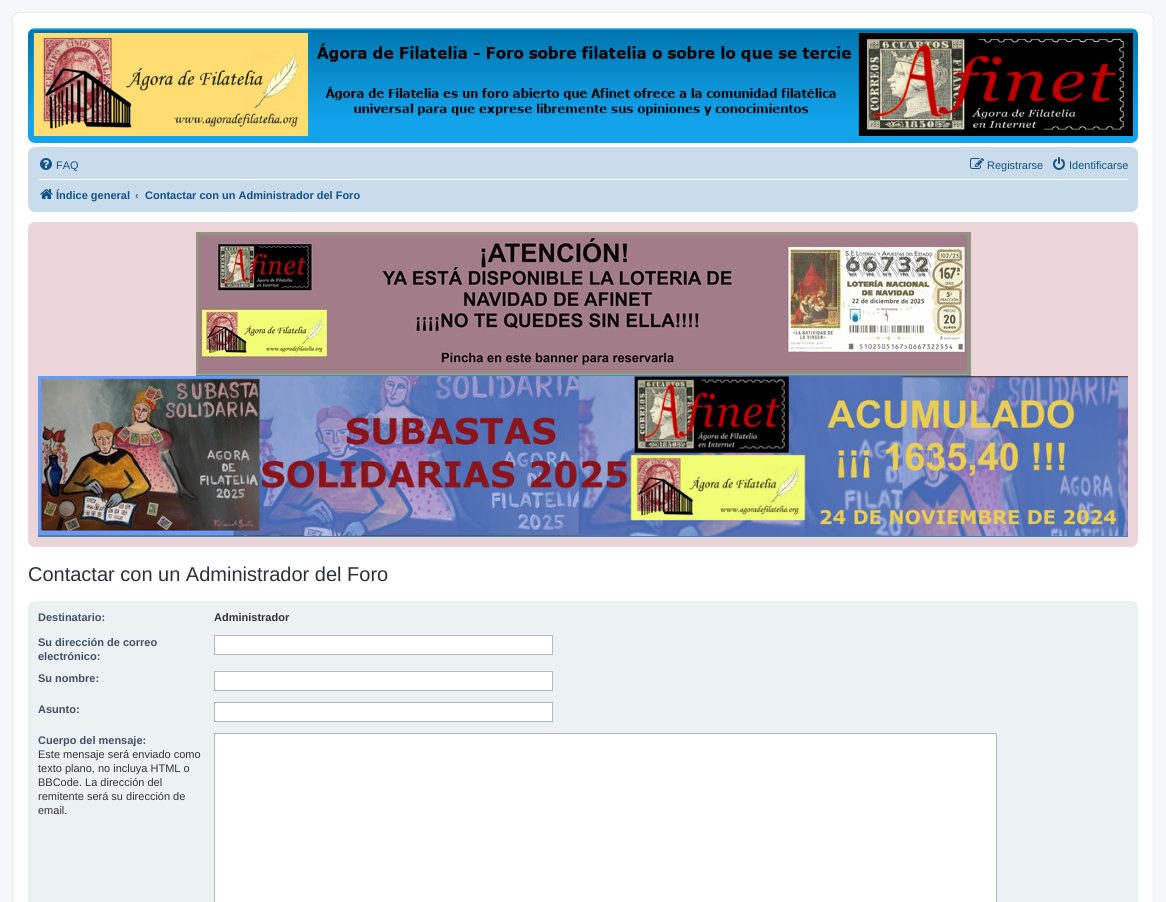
import math
import cairo

surface = cairo.ImageSurface(cairo.Format.RGB24, 1166, 902)
ctx = cairo.Context(surface)
options = cairo.FontOptions()
options.set_hint_metrics(cairo.HintMetrics.OFF)
options.set_hint_style(cairo.HintStyle.NONE)
ctx.set_font_options(options)
ctx.set_miter_limit(4)


def ink(r, g, b):
    ctx.set_source_rgb(r / 255, g / 255, b / 255)


def write(x, y, s, family, size, color, bold=False, italic=False):
    ctx.select_font_face(family, cairo.FontSlant.ITALIC if italic else cairo.FontSlant.NORMAL, cairo.FontWeight.BOLD if bold else cairo.FontWeight.NORMAL)
    ctx.set_font_size(size)
    ink(*color)
    ctx.move_to(x, y)
    ctx.show_text(s)


def block(x, y, w, h, *color):
    ink(*color)
    ctx.rectangle(x, y, w, h)
    ctx.fill()


def round_path(x, y, w, h, r):
    ctx.new_sub_path()
    for i, (u, v) in enumerate([(x + w - r, y + h - r), (x + r, y + h - r), (x + r, y + r), (x + w - r, y + r)]):
        ctx.arc(u, v, r, i * math.pi / 2, (i + 1) * math.pi / 2)
    ctx.close_path()


def paste(path, x, y, w, h):
    ctx.save()
    ctx.set_source_surface(cairo.ImageSurface.create_from_png(path), x, y)
    ctx.rectangle(x, y, w, h)
    ctx.fill()
    ctx.restore()


s1 = dict(family="Liberation Sans", size=11, color=(16, 82, 137))
s2 = dict(family="Liberation Sans", size=11, color=(16, 82, 137), bold=True)
s3 = dict(family="Liberation Sans", size=11, color=(83, 100, 130), bold=True)
s4 = dict(family="Liberation Sans", size=20, color=(40, 49, 63))
s5 = dict(family="Liberation Sans", size=11, color=(66, 80, 103), bold=True)
s6 = dict(family="Liberation Sans", size=11, color=(51, 51, 51), bold=True)
s7 = dict(family="Liberation Sans", size=11, color=(51, 51, 51))

ink(245, 247, 250)
ctx.paint()
ink(255, 255, 255)
round_path(12.5, 12.5, 1141, 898, 7.5)
ctx.fill_preserve()
ink(230, 233, 237)
ctx.set_line_width(1)
ctx.stroke()
gradient = cairo.LinearGradient(583, 28, 583, 143)
gradient.add_color_stop_rgba(0, 0.416, 0.808, 1, 1)
gradient.add_color_stop_rgba(0.02, 0, 0.463, 0.694, 1)
gradient.add_color_stop_rgba(0.8, 0.071, 0.639, 0.922, 1)
gradient.add_color_stop_rgba(1, 0.071, 0.639, 0.922, 1)
ctx.set_source(gradient)
round_path(28, 28, 1110, 115, 7)
ctx.fill()
paste("pic1.png", 33, 33, 1100, 103)
ink(202, 220, 235)
round_path(28, 147, 1110, 65, 7)
ctx.fill()
paste("pic2.png", 40, 158, 12, 12)
write(56, 169, "FAQ", **s1)
paste("pic3.png", 970, 158, 14, 11)
write(987, 169, "Registrarse", **s1)
paste("pic4.png", 1053, 157, 12, 13)
write(1069, 169, "Identificarse", **s1)
block(38, 179, 1090, 1, 255, 255, 255)
paste("pic5.png", 40, 189, 13, 10)
write(56, 199, "Índice general", **s2)
write(135, 199, "‹", **s3)
write(145, 199, "Contactar con un Administrador del Foro", **s2)
ink(236, 213, 216)
round_path(28, 222, 1110, 325, 7)
ctx.fill()
block(196, 375, 775, 1, 54, 138, 210)
paste("pic6.png", 196, 232, 775, 143)
block(38, 536, 1090, 1, 54, 138, 210)
paste("pic7.png", 38, 376, 1090, 160)
write(28, 581, "Contactar con un Administrador del Foro", **s4)
ink(236, 241, 243)
round_path(28, 601, 1110, 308, 7)
ctx.fill()
write(38, 621, "Destinatario:", **s5)
write(214, 621, "Administrador", **s6)
write(38, 646, "Su dirección de correo", **s5)
write(38, 660, "electrónico:", **s5)
ink(255, 255, 255)
ctx.rectangle(214.5, 635.5, 338, 19)
ctx.fill_preserve()
ink(180, 186, 192)
ctx.stroke()
write(38, 682, "Su nombre:", **s5)
ink(255, 255, 255)
ctx.rectangle(214.5, 671.5, 338, 19)
ctx.fill_preserve()
ink(180, 186, 192)
ctx.stroke()
write(38, 713, "Asunto:", **s5)
ink(255, 255, 255)
ctx.rectangle(214.5, 702.5, 338, 19)
ctx.fill_preserve()
ink(180, 186, 192)
ctx.stroke()
write(38, 744, "Cuerpo del mensaje:", **s5)
write(38, 758, "Este mensaje será enviado como", **s7)
write(38, 772, "texto plano, no incluya HTML o", **s7)
write(38, 786, "BBCode. La dirección del", **s7)
write(38, 800, "remitente será su dirección de", **s7)
write(38, 814, "email.", **s7)
ink(255, 255, 255)
ctx.rectangle(214.5, 733.5, 782, 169)
ctx.fill_preserve()
ink(180, 186, 192)
ctx.stroke()
surface.write_to_png("screenshot.png")
